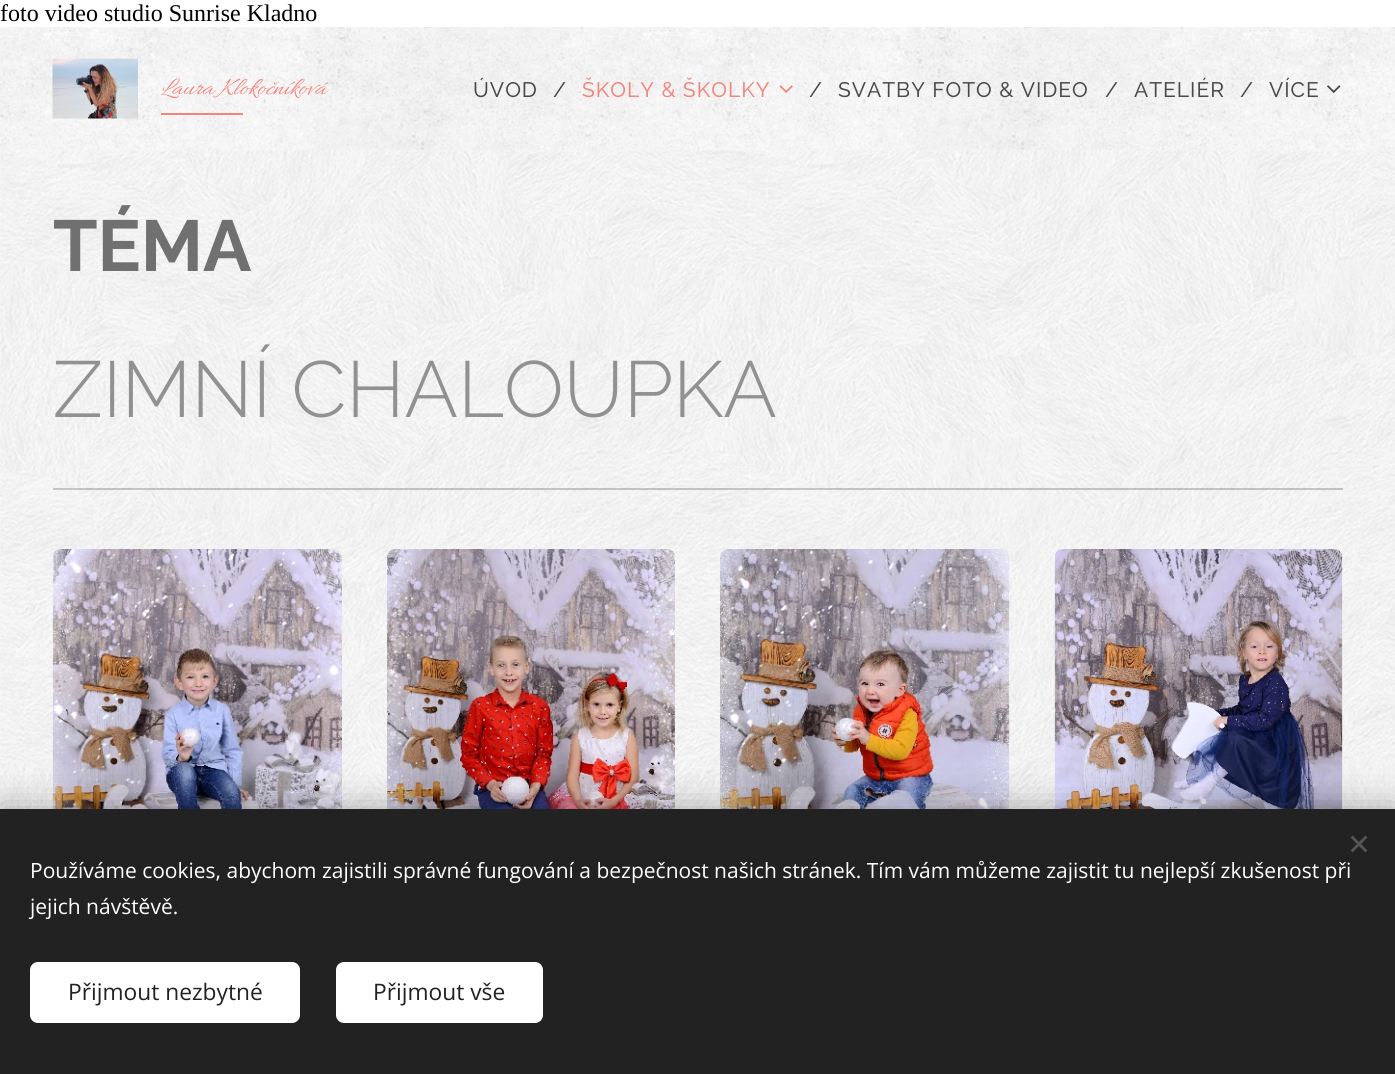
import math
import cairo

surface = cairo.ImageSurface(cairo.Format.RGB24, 1395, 1074)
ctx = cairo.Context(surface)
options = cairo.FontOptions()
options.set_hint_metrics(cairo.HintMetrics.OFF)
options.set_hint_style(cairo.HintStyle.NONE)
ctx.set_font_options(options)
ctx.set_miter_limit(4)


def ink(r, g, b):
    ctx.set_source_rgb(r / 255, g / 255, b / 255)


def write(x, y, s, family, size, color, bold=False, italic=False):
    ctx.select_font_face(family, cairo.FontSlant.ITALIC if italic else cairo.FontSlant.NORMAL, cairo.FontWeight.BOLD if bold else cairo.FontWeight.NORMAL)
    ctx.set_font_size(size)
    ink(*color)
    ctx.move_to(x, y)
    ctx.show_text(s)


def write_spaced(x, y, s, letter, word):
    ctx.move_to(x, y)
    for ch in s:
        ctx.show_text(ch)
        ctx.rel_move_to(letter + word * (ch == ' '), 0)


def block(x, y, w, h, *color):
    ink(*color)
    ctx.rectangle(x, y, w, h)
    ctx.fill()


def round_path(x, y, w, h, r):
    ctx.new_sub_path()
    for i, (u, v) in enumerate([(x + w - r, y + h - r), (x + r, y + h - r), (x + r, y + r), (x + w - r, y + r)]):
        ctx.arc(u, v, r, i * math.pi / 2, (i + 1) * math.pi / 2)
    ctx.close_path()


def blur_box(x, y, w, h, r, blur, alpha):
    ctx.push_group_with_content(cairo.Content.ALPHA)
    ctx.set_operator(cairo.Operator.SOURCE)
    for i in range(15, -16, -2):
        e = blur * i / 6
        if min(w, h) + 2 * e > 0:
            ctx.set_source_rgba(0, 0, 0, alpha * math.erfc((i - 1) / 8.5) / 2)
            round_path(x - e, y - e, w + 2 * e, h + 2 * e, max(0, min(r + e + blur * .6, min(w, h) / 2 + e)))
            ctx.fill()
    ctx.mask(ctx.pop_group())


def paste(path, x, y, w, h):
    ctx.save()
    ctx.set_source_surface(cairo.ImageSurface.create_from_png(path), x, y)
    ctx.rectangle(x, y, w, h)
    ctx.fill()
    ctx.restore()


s1 = dict(family="Liberation Serif", size=24, color=(0, 0, 0))
s2 = dict(family="Allura", size=25.25, color=(242, 133, 124), italic=True)
s3 = dict(family="Raleway", size=72, color=(112, 112, 112), bold=True)
s4 = dict(family="Raleway Light", size=79.25, color=(145, 145, 145))
s5 = dict(family="Open Sans", size=21, color=(255, 255, 255))
s6 = dict(family="Open Sans", size=22.75, color=(34, 34, 34))

ink(255, 255, 255)
ctx.paint()
write(0, 21, "foto video studio Sunrise Kladno", **s1)
paste("pic1.png", 0, 27, 1395, 123)
paste("pic2.png", 52, 58, 86, 61)
write(161, 94, "Laura Klokočníková", **s2)
block(161, 113, 82, 2, 242, 133, 124)
ctx.select_font_face("Raleway")
ctx.set_font_size(21)
ink(72, 72, 72)
write_spaced(473, 97, "ÚVOD", 1, 0)
write_spaced(553, 97, "/", 1, 0)
ink(242, 133, 124)
write_spaced(582, 97, "ŠKOLY & ŠKOLKY", 1, 0)
ink(72, 72, 72)
write_spaced(809, 97, "/", 1, 0)
paste("pic3.png", 779, 85, 14, 8)
write_spaced(838, 97, "SVATBY FOTO & VIDEO", 1, 0)
write_spaced(1105, 97, "/", 1, 0)
write_spaced(1134, 97, "ATELIÉR", 1, 0)
write_spaced(1240, 97, "/", 1, 0)
write_spaced(1269, 97, "VÍCE", 1, 0)
paste("pic4.png", 1327, 85, 14, 8)
paste("pic5.png", 0, 150, 1395, 659)
write(53, 271, "TÉMA", **s3)
write(53, 417, "ZIMNÍ CHALOUPKA", **s4)
ctx.set_source_rgba(0, 0, 0, 0.2)
ctx.rectangle(53, 488, 1290, 2)
ctx.fill()
paste("pic6.png", 52, 549, 290, 260)
paste("pic7.png", 387, 549, 288, 260)
paste("pic8.png", 720, 549, 290, 260)
paste("pic9.png", 1054, 549, 289, 260)
ink(0, 0, 0)
blur_box(0, 809, 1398, 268, 0, 19, 0.33)
block(0, 809, 1395, 265, 34, 34, 34)
ink(85, 85, 85)
ctx.new_path()
ctx.move_to(1350.5, 850.5)
ctx.line_to(1365.5, 835.5)
ctx.line_to(1367.5, 837.5)
ctx.line_to(1352.5, 852.5)
ctx.close_path()
ctx.fill()
ctx.new_path()
ctx.move_to(1352.5, 835.5)
ctx.line_to(1367.5, 850.5)
ctx.line_to(1365.5, 852.5)
ctx.line_to(1350.5, 837.5)
ctx.close_path()
ctx.fill()
write(30, 878, "Používáme cookies, abychom zajistili správné fungování a bezpečnost našich stránek. Tím vám můžeme zajistit tu nejlepší zkušenost při", **s5)
write(30, 914, "jejich návštěvě.", **s5)
round_path(30, 962, 270, 61, 8)
ctx.fill()
write(68, 1000, "Přijmout nezbytné", **s6)
ink(255, 255, 255)
round_path(336, 962, 207, 61, 8)
ctx.fill()
write(373, 1000, "Přijmout vše", **s6)
surface.write_to_png("screenshot.png")
